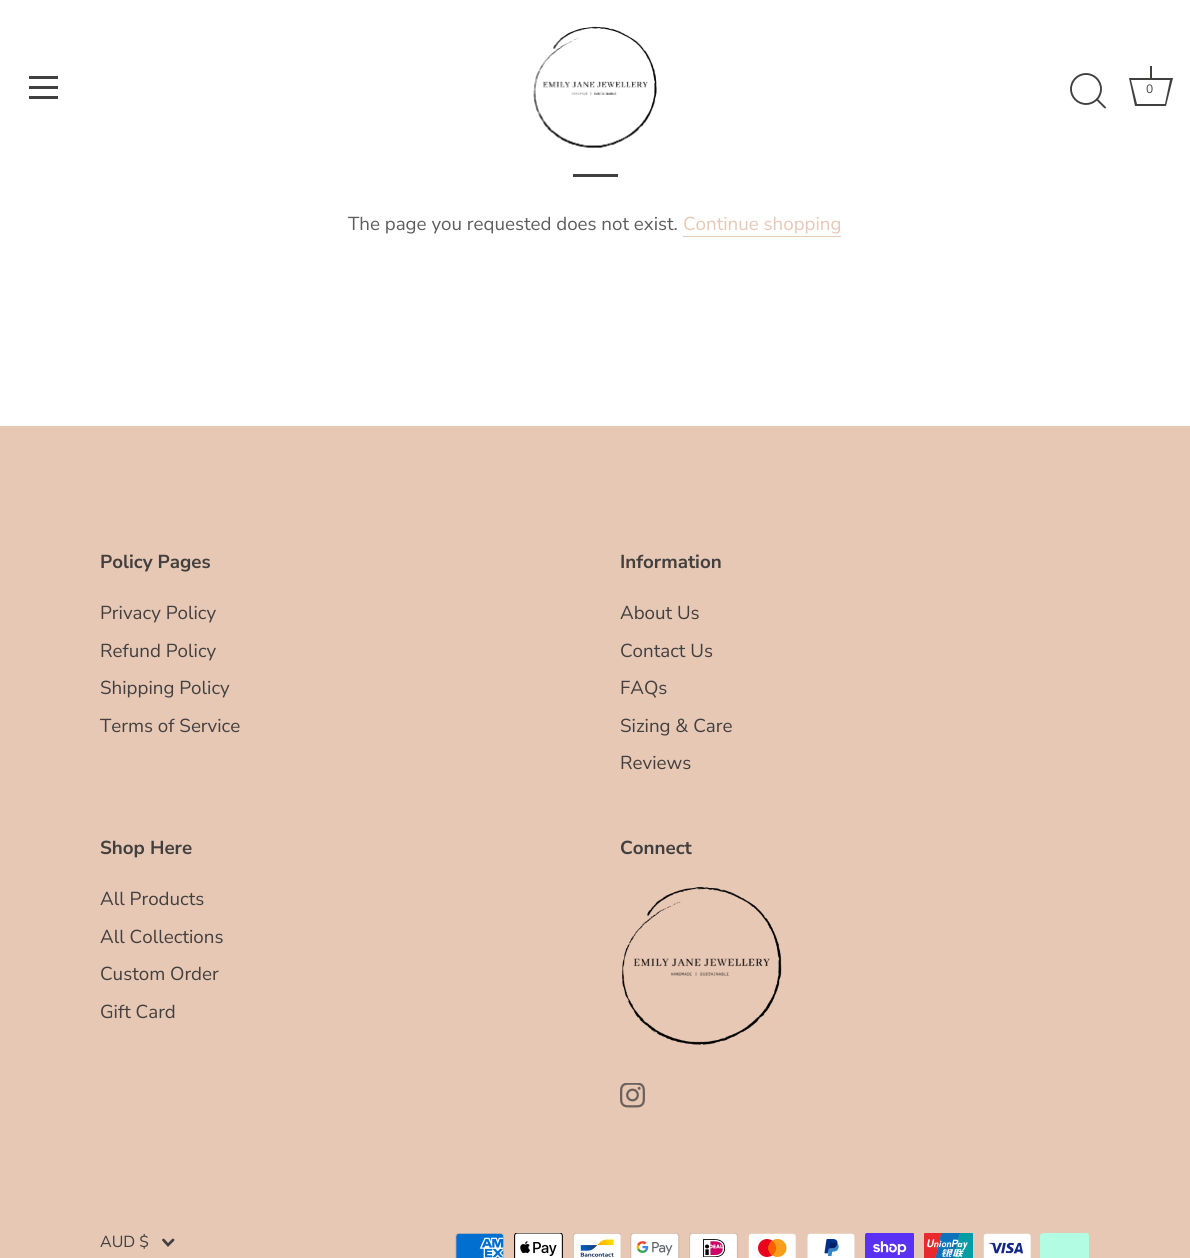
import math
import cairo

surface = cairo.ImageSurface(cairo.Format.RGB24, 1190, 1258)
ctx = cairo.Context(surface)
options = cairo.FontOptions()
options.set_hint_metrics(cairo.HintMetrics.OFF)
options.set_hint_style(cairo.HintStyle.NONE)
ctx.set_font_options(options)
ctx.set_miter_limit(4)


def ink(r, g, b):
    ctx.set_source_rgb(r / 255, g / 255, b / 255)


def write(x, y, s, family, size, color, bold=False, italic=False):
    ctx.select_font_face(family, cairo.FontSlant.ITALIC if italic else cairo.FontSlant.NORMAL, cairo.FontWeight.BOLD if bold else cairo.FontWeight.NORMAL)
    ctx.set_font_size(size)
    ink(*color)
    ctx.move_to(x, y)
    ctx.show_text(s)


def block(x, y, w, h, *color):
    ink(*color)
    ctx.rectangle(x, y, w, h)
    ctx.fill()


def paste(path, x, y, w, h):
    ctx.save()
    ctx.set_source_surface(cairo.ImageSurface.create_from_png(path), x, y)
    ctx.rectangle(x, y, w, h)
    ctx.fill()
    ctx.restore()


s1 = dict(family="Nunito Sans", size=12, color=(66, 63, 63))
s2 = dict(family="Nunito Sans", size=18.75, color=(94, 92, 92))
s3 = dict(family="Nunito Sans", size=18.75, color=(231, 200, 181))
s4 = dict(family="Nunito Sans", size=18.75, color=(66, 63, 63), bold=True)
s5 = dict(family="Nunito Sans", size=18.75, color=(66, 63, 63))
s6 = dict(family="Nunito Sans", size=16, color=(66, 63, 63))

ink(255, 255, 255)
ctx.paint()
block(29, 76, 29, 3, 66, 63, 63)
block(29, 86, 29, 3, 66, 63, 63)
block(29, 96, 29, 3, 66, 63, 63)
paste("pic1.png", 533, 26, 124, 123)
ctx.arc(1086, 89, 15, 0, 2 * math.pi)
ctx.set_line_width(1.9)
ctx.stroke()
ctx.new_path()
ctx.move_to(1105, 107.5)
ctx.line_to(1097, 99.5)
ctx.set_line_cap(cairo.LineCap.ROUND)
ctx.set_line_join(cairo.LineJoin.ROUND)
ctx.stroke()
block(1150, 66, 2, 12, 66, 63, 63)
ctx.new_path()
ctx.move_to(1170, 80)
ctx.line_to(1165, 104)
ctx.line_to(1137, 104)
ctx.line_to(1131, 80)
ctx.line_to(1170, 80)
ctx.move_to(1173, 78)
ctx.line_to(1129, 78)
ctx.line_to(1135, 106)
ctx.line_to(1166, 106)
ctx.close_path()
ctx.fill()
write(1146, 93, "0", **s1)
block(573, 174, 45, 3, 66, 63, 63)
write(348, 230, "The page you requested does not exist.", **s2)
write(683, 230, "Continue shopping", **s3)
block(683, 236, 158, 1, 231, 200, 181)
block(0, 426, 1190, 832, 231, 200, 181)
write(100, 568, "Policy Pages", **s4)
write(100, 619, "Privacy Policy", **s5)
write(100, 657, "Refund Policy", **s5)
write(100, 694, "Shipping Policy", **s5)
write(100, 732, "Terms of Service", **s5)
write(620, 568, "Information", **s4)
write(620, 619, "About Us", **s5)
write(620, 657, "Contact Us", **s5)
write(620, 694, "FAQs", **s5)
write(620, 732, "Sizing & Care", **s5)
write(620, 769, "Reviews", **s5)
write(100, 854, "Shop Here", **s4)
write(100, 905, "All Products", **s5)
write(100, 943, "All Collections", **s5)
write(100, 980, "Custom Order", **s5)
write(100, 1018, "Gift Card", **s5)
write(620, 854, "Connect", **s4)
paste("pic2.png", 622, 886, 160, 159)
paste("pic3.png", 620, 1083, 25, 25)
write(100, 1247, "AUD $", **s6)
ctx.new_path()
ctx.move_to(163.5, 1240)
ctx.line_to(168, 1245)
ctx.line_to(173, 1240)
ctx.set_line_width(2.7)
ctx.set_line_join(cairo.LineJoin.MITER)
ctx.stroke()
paste("pic4.png", 455, 1233, 49, 25)
paste("pic5.png", 514, 1233, 49, 25)
paste("pic6.png", 573, 1233, 48, 25)
paste("pic7.png", 630, 1233, 50, 25)
paste("pic8.png", 689, 1233, 49, 25)
paste("pic9.png", 748, 1233, 48, 25)
paste("pic10.png", 807, 1233, 48, 25)
paste("pic11.png", 865, 1233, 49, 25)
paste("pic12.png", 924, 1233, 49, 25)
paste("pic13.png", 983, 1233, 48, 25)
ink(178, 252, 228)
ctx.new_path()
ctx.move_to(1086, 1233)
ctx.line_to(1044, 1233)
ctx.curve_to(1042, 1233, 1040, 1234, 1040, 1236)
ctx.line_to(1040, 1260)
ctx.curve_to(1040, 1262, 1042, 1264, 1044, 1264)
ctx.line_to(1086, 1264)
ctx.curve_to(1088, 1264, 1089, 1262, 1089, 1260)
ctx.line_to(1089, 1236)
ctx.curve_to(1089, 1234, 1088, 1233, 1086, 1233)
ctx.close_path()
ctx.fill()
surface.write_to_png("screenshot.png")
